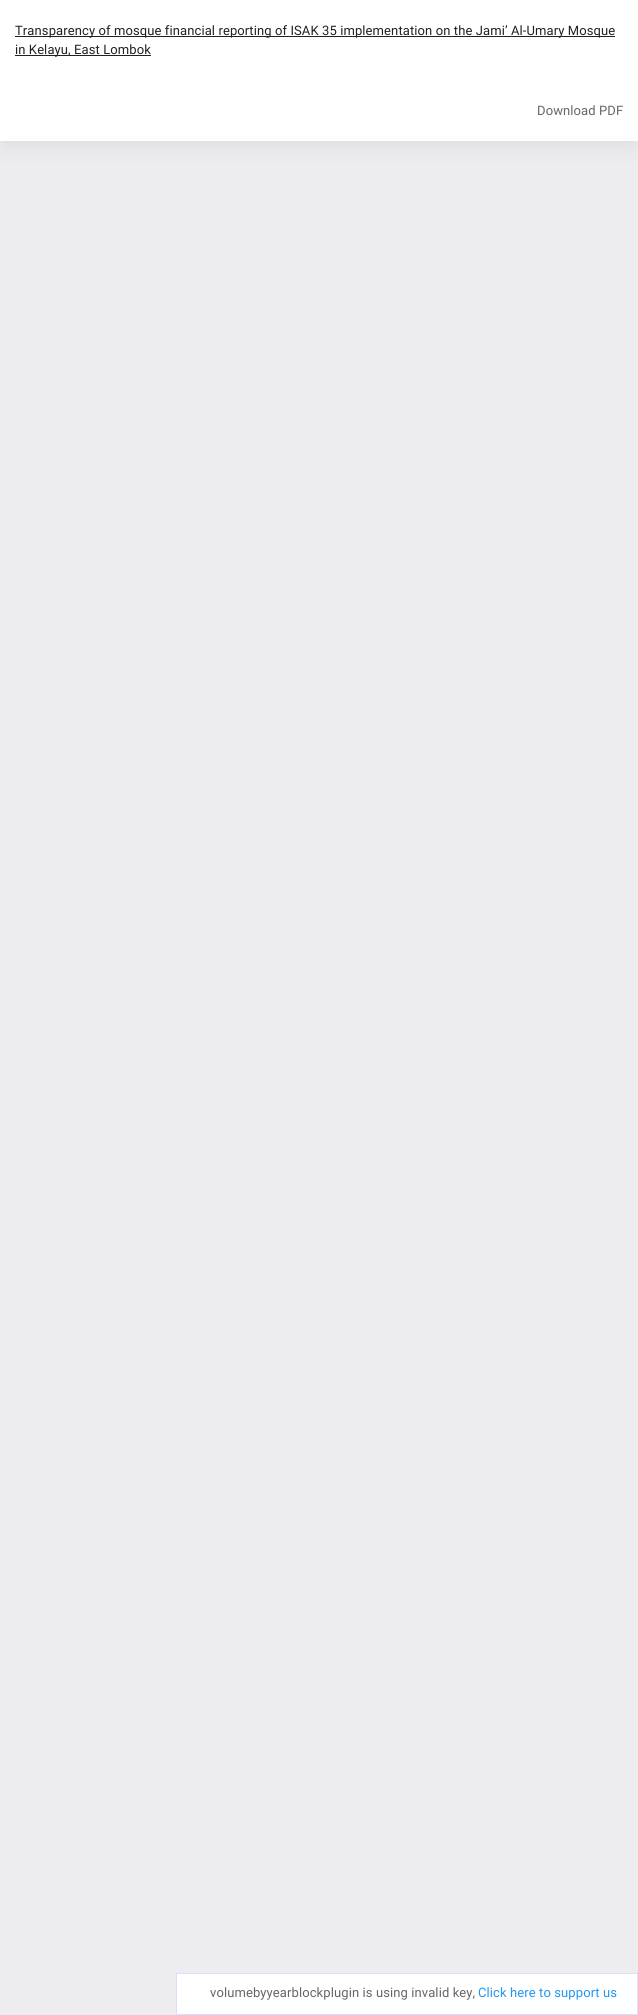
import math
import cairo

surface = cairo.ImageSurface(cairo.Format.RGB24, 638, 2015)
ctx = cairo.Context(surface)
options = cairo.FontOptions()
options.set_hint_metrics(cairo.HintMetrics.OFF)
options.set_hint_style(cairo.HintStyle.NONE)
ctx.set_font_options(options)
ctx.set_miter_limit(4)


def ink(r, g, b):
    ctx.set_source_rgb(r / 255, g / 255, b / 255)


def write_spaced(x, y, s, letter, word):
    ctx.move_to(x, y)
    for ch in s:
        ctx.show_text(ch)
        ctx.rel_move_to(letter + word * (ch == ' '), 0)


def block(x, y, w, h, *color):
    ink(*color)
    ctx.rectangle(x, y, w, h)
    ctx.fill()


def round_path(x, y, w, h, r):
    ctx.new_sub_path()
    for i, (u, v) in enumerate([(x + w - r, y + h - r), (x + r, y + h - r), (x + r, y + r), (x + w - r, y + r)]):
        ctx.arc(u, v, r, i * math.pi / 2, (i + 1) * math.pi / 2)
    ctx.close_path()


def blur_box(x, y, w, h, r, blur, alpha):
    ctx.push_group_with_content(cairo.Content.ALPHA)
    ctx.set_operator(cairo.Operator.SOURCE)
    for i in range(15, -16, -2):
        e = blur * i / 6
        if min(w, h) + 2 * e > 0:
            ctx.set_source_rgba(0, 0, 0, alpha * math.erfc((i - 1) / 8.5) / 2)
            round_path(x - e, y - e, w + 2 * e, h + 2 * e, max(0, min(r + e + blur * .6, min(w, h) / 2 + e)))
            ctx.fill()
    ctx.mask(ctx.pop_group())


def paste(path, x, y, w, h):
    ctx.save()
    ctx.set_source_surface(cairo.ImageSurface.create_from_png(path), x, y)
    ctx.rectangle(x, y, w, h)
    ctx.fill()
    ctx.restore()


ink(255, 255, 255)
ctx.paint()
paste("pic1.png", 0, 141, 638, 1874)
ink(0, 0, 0)
blur_box(3, 10, 630, 133, 0, 12, 0.09)
block(0, 0, 638, 141, 255, 255, 255)
block(15, 36, 600, 1, 33, 33, 33)
ctx.select_font_face("Roboto")
ctx.set_font_size(13)
write_spaced(15, 35, "Transparency of mosque financial reporting of ISAK 35 implementation on the Jami’ Al-Umary Mosque", 0.1, 0)
block(15, 55, 136, 1, 33, 33, 33)
write_spaced(15, 54, "in Kelayu, East Lombok", 0.1, 0)
ink(102, 102, 102)
write_spaced(537, 115, "Download PDF", 0.1, 0)
ink(255, 255, 255)
ctx.rectangle(176.5, 1973.5, 461, 41)
ctx.fill_preserve()
ink(223, 221, 253)
ctx.set_line_width(1)
ctx.stroke()
ink(102, 102, 102)
write_spaced(210, 1997, "volumebyyearblockplugin is using invalid key,", 0.1, 0)
ink(33, 150, 243)
write_spaced(478, 1997, "Click here to support us", 0.1, 0)
surface.write_to_png("screenshot.png")
